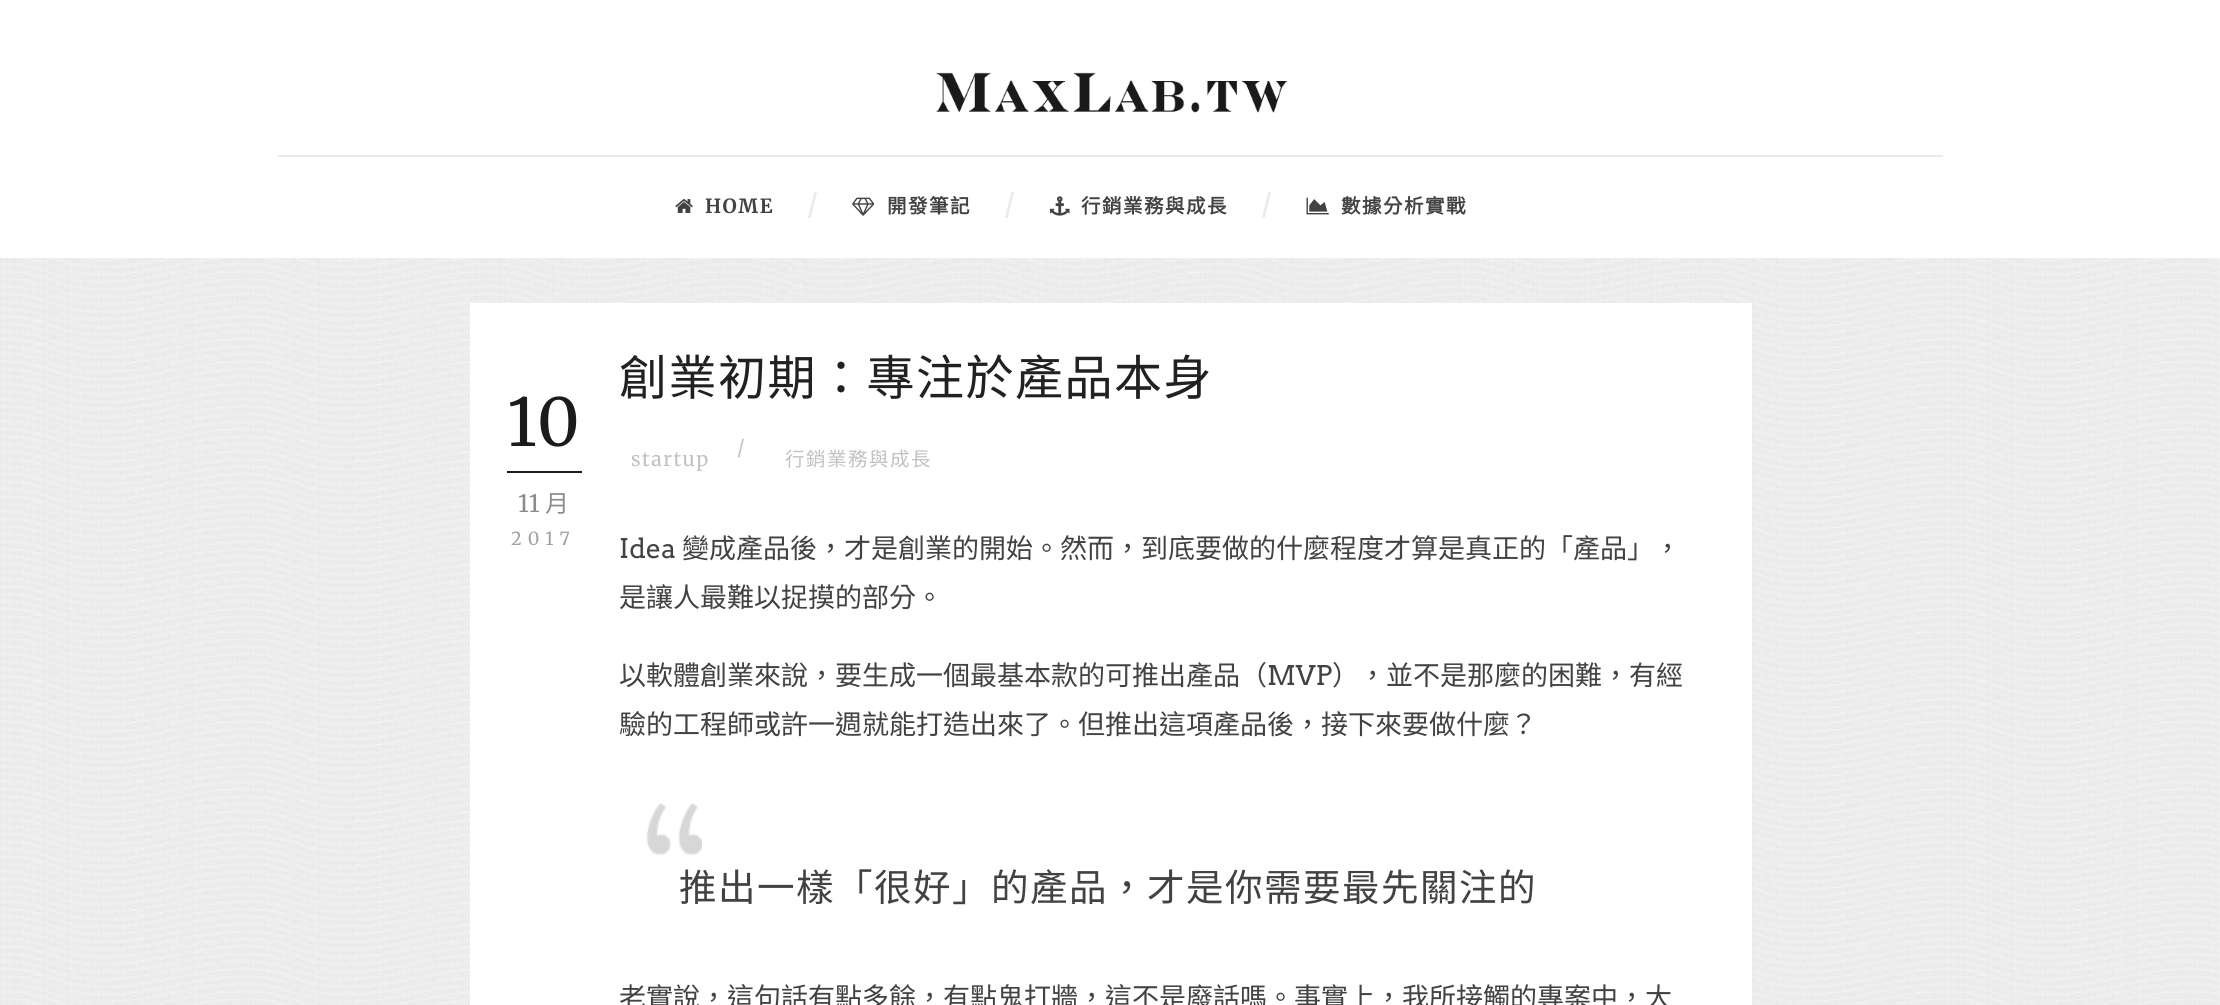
import math
import cairo

surface = cairo.ImageSurface(cairo.Format.RGB24, 2220, 1005)
ctx = cairo.Context(surface)
options = cairo.FontOptions()
options.set_hint_metrics(cairo.HintMetrics.OFF)
options.set_hint_style(cairo.HintStyle.NONE)
ctx.set_font_options(options)
ctx.set_miter_limit(4)


def ink(r, g, b):
    ctx.set_source_rgb(r / 255, g / 255, b / 255)


def write(x, y, s, family, size, color, bold=False, italic=False):
    ctx.select_font_face(family, cairo.FontSlant.ITALIC if italic else cairo.FontSlant.NORMAL, cairo.FontWeight.BOLD if bold else cairo.FontWeight.NORMAL)
    ctx.set_font_size(size)
    ink(*color)
    ctx.move_to(x, y)
    ctx.show_text(s)


def write_spaced(x, y, s, letter, word):
    ctx.move_to(x, y)
    for ch in s:
        ctx.show_text(ch)
        ctx.rel_move_to(letter + word * (ch == ' '), 0)


def block(x, y, w, h, *color):
    ink(*color)
    ctx.rectangle(x, y, w, h)
    ctx.fill()


def paste(path, x, y, w, h):
    ctx.save()
    ctx.set_source_surface(cairo.ImageSurface.create_from_png(path), x, y)
    ctx.rectangle(x, y, w, h)
    ctx.fill()
    ctx.restore()


s1 = dict(family="Merriweather", size=66, color=(27, 27, 27))
s2 = dict(family="Merriweather", size=24, color=(140, 140, 140))
s3 = dict(family="Noto Sans CJK TC", size=24, color=(140, 140, 140))
s4 = dict(family="Arvo", size=27, color=(66, 66, 66))
s5 = dict(family="Noto Sans CJK TC", size=27, color=(66, 66, 66))

ink(255, 255, 255)
ctx.paint()
paste("pic1.png", 0, 258, 2220, 747)
paste("pic2.png", 936, 72, 351, 41)
block(278, 155, 1665, 2, 235, 235, 235)
paste("pic3.png", 675, 199, 18, 14)
ctx.select_font_face("Merriweather", cairo.FontSlant.NORMAL, cairo.FontWeight.BOLD)
ctx.set_font_size(19.5)
ink(66, 66, 66)
write_spaced(705, 213, "HOME", 1.5, 0)
ctx.set_font_size(27)
ink(235, 235, 235)
write_spaced(807, 213, "/", 1.5, 0)
paste("pic4.png", 852, 197, 23, 19)
ctx.select_font_face("Noto Sans CJK TC", cairo.FontSlant.NORMAL, cairo.FontWeight.BOLD)
ctx.set_font_size(19.5)
ink(66, 66, 66)
write_spaced(887, 213, "開發筆記", 1.5, 0)
ctx.select_font_face("Merriweather", cairo.FontSlant.NORMAL, cairo.FontWeight.BOLD)
ctx.set_font_size(27)
ink(235, 235, 235)
write_spaced(1004, 213, "/", 1.5, 0)
paste("pic5.png", 1050, 196, 20, 20)
ctx.select_font_face("Noto Sans CJK TC", cairo.FontSlant.NORMAL, cairo.FontWeight.BOLD)
ctx.set_font_size(19.5)
ink(66, 66, 66)
write_spaced(1081, 213, "行銷業務與成長", 1.5, 0)
ctx.select_font_face("Merriweather", cairo.FontSlant.NORMAL, cairo.FontWeight.BOLD)
ctx.set_font_size(27)
ink(235, 235, 235)
write_spaced(1261, 213, "/", 1.5, 0)
paste("pic6.png", 1306, 197, 23, 18)
ctx.select_font_face("Noto Sans CJK TC", cairo.FontSlant.NORMAL, cairo.FontWeight.BOLD)
ctx.set_font_size(19.5)
ink(66, 66, 66)
write_spaced(1341, 213, "數據分析實戰", 1.5, 0)
block(470, 303, 1282, 702, 255, 255, 255)
block(507, 471, 75, 2, 27, 27, 27)
write(507, 446, "10", **s1)
write(518, 512, "11", **s2)
write(545, 512, "月", **s3)
ctx.select_font_face("Merriweather")
ctx.set_font_size(18)
ink(162, 162, 162)
write_spaced(511, 545, "2017", 6, 0)
ctx.select_font_face("Noto Sans CJK TC")
ctx.set_font_size(48)
ink(33, 33, 33)
write_spaced(619, 395, "創業初期：專注於產品本身", 1.5, 0)
ctx.select_font_face("Merriweather")
ctx.set_font_size(19.5)
ink(193, 193, 193)
write_spaced(631, 466, "startup", 1.5, 0)
write_spaced(737, 454, "/", 1.5, 0)
ctx.select_font_face("Noto Sans CJK TC")
write_spaced(785, 466, "行銷業務與成長", 1.5, 0)
write(619, 558, "Idea", **s4)
write(682, 558, "變成產品後，才是創業的開始。然而，到底要做的什麼程度才算是真正的「產品」，", **s5)
write(619, 607, "是讓人最難以捉摸的部分。", **s5)
write(619, 685, "以軟體創業來說，要生成一個最基本款的可推出產品（", **s5)
write(1267, 685, "MVP", **s4)
write(1332, 685, "），並不是那麼的困難，有經", **s5)
write(619, 734, "驗的工程師或許一週就能打造出來了。但推出這項產品後，接下來要做什麼？", **s5)
paste("pic7.png", 646, 802, 56, 53)
ctx.set_font_size(37.5)
write_spaced(679, 901, "推出一樣「很好」的產品，才是你需要最先關注的", 1.5, 0)
write(619, 1007, "老實說，這句話有點多餘，有點鬼打牆，這不是廢話嗎。事實上，我所接觸的專案中，大", **s5)
surface.write_to_png("screenshot.png")
